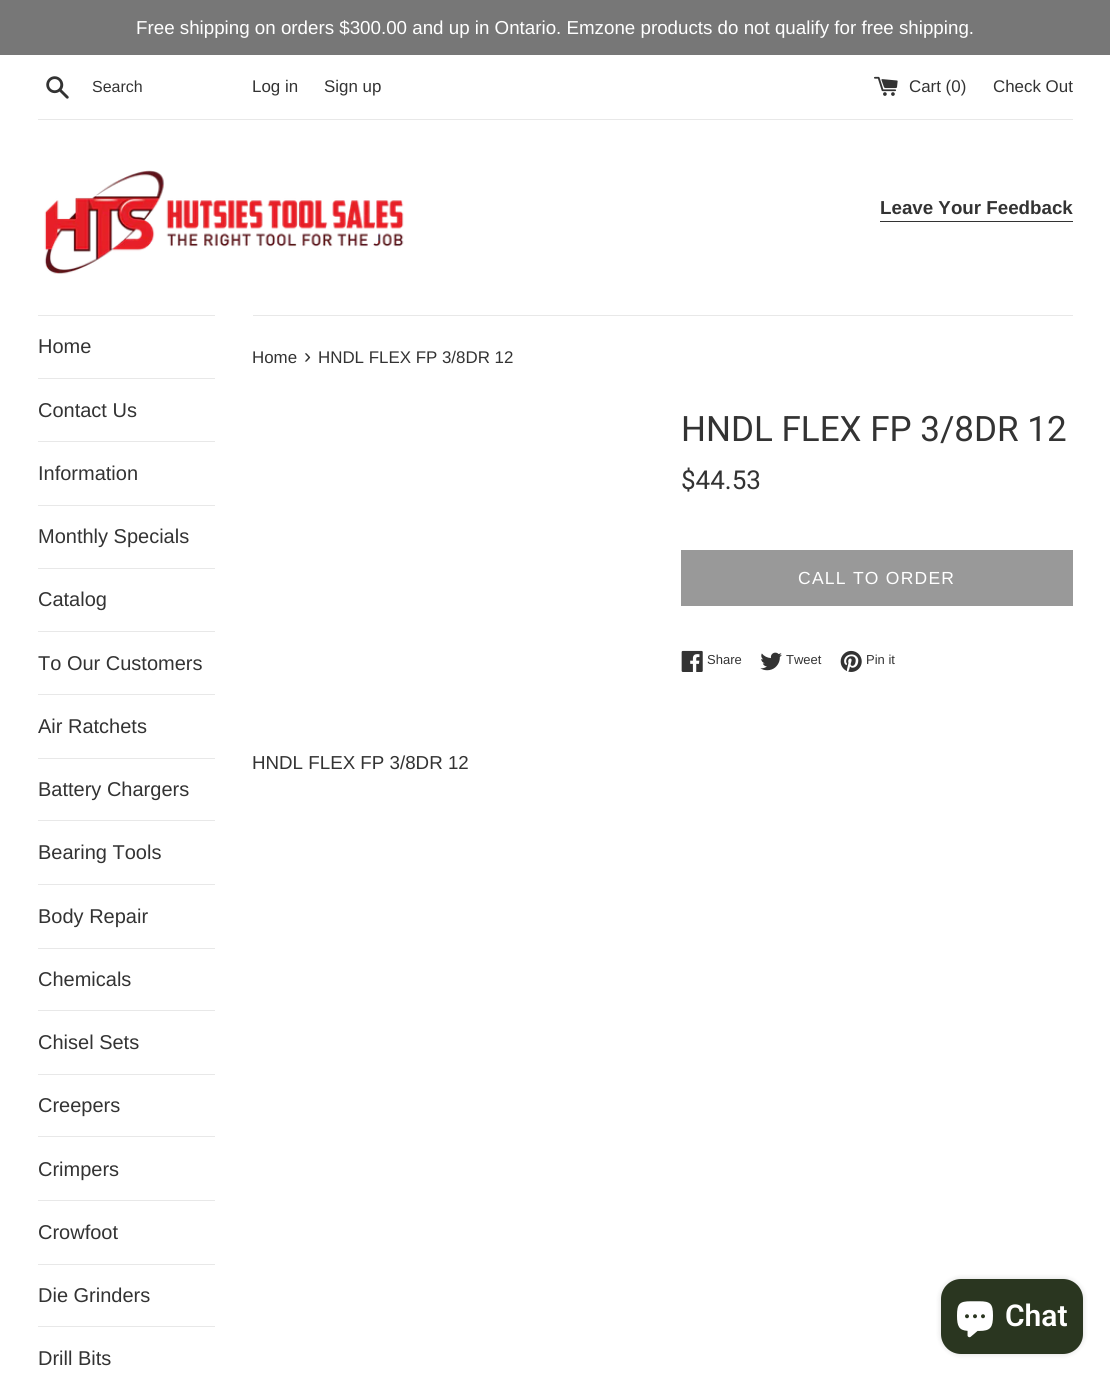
import math
import cairo

surface = cairo.ImageSurface(cairo.Format.RGB24, 1110, 1379)
ctx = cairo.Context(surface)
options = cairo.FontOptions()
options.set_hint_metrics(cairo.HintMetrics.OFF)
options.set_hint_style(cairo.HintStyle.NONE)
ctx.set_font_options(options)
ctx.set_miter_limit(4)


def ink(r, g, b):
    ctx.set_source_rgb(r / 255, g / 255, b / 255)


def write(x, y, s, family, size, color, bold=False, italic=False):
    ctx.select_font_face(family, cairo.FontSlant.ITALIC if italic else cairo.FontSlant.NORMAL, cairo.FontWeight.BOLD if bold else cairo.FontWeight.NORMAL)
    ctx.set_font_size(size)
    ink(*color)
    ctx.move_to(x, y)
    ctx.show_text(s)


def write_spaced(x, y, s, letter, word):
    ctx.move_to(x, y)
    for ch in s:
        ctx.show_text(ch)
        ctx.rel_move_to(letter + word * (ch == ' '), 0)


def block(x, y, w, h, *color):
    ink(*color)
    ctx.rectangle(x, y, w, h)
    ctx.fill()


def round_path(x, y, w, h, r):
    ctx.new_sub_path()
    for i, (u, v) in enumerate([(x + w - r, y + h - r), (x + r, y + h - r), (x + r, y + r), (x + w - r, y + r)]):
        ctx.arc(u, v, r, i * math.pi / 2, (i + 1) * math.pi / 2)
    ctx.close_path()


def blur_box(x, y, w, h, r, blur, alpha):
    ctx.push_group_with_content(cairo.Content.ALPHA)
    ctx.set_operator(cairo.Operator.SOURCE)
    for i in range(15, -16, -2):
        e = blur * i / 6
        if min(w, h) + 2 * e > 0:
            ctx.set_source_rgba(0, 0, 0, alpha * math.erfc((i - 1) / 8.5) / 2)
            round_path(x - e, y - e, w + 2 * e, h + 2 * e, max(0, min(r + e + blur * .6, min(w, h) / 2 + e)))
            ctx.fill()
    ctx.mask(ctx.pop_group())


def paste(path, x, y, w, h):
    ctx.save()
    ctx.set_source_surface(cairo.ImageSurface.create_from_png(path), x, y)
    ctx.rectangle(x, y, w, h)
    ctx.fill()
    ctx.restore()


s1 = dict(family="Liberation Sans", size=18.75, color=(255, 255, 255))
s2 = dict(family="Liberation Sans", size=16, color=(51, 51, 51))
s3 = dict(family="Liberation Sans", size=16.9, color=(51, 51, 51))
s4 = dict(family="Liberation Sans", size=18.75, color=(51, 51, 51), bold=True)
s5 = dict(family="Liberation Sans", size=20, color=(51, 51, 51))
s6 = dict(family="Liberation Sans", size=21, color=(51, 51, 51))
s7 = dict(family="Roboto", size=35, color=(51, 51, 51))
s8 = dict(family="Roboto", size=26, color=(51, 51, 51))
s9 = dict(family="Liberation Sans", size=13, color=(51, 51, 51))
s10 = dict(family="Liberation Sans", size=18.75, color=(51, 51, 51))
s11 = dict(family="Roboto SemiBold", size=30, color=(255, 255, 255))

ink(255, 255, 255)
ctx.paint()
block(0, 0, 1110, 55, 119, 119, 119)
write(136, 34, "Free shipping on orders $300.00 and up in Ontario. Emzone products do not qualify for free shipping.", **s1)
paste("pic1.png", 46, 76, 23, 23)
write(92, 92, "Search", **s2)
write(252, 92, "Log in", **s3)
write(324, 92, "Sign up", **s3)
paste("pic2.png", 874, 76, 24, 20)
write(909, 92, "Cart (0)", **s3)
write(993, 92, "Check Out", **s3)
block(38, 119, 1035, 1, 232, 232, 232)
paste("pic3.png", 44, 170, 360, 104)
write(880, 214, "Leave Your Feedback", **s4)
block(880, 221, 193, 1, 51, 51, 51)
block(38, 315, 177, 1, 232, 232, 232)
block(38, 378, 177, 1, 232, 232, 232)
write(38, 353, "Home", **s5)
block(38, 441, 177, 1, 232, 232, 232)
write(38, 417, "Contact Us", **s5)
block(38, 505, 177, 1, 232, 232, 232)
write(38, 480, "Information", **s5)
block(38, 568, 177, 1, 232, 232, 232)
write(38, 543, "Monthly Specials", **s5)
block(38, 631, 177, 1, 232, 232, 232)
write(38, 606, "Catalog", **s5)
block(38, 694, 177, 1, 232, 232, 232)
write(38, 670, "To Our Customers", **s5)
block(38, 758, 177, 1, 232, 232, 232)
write(38, 733, "Air Ratchets", **s5)
block(38, 820, 177, 1, 232, 232, 232)
write(38, 796, "Battery Chargers", **s5)
block(38, 884, 177, 1, 232, 232, 232)
write(38, 859, "Bearing Tools", **s5)
block(38, 948, 177, 1, 232, 232, 232)
write(38, 923, "Body Repair", **s5)
block(38, 1010, 177, 1, 232, 232, 232)
write(38, 986, "Chemicals", **s5)
block(38, 1074, 177, 1, 232, 232, 232)
write(38, 1049, "Chisel Sets", **s5)
block(38, 1136, 177, 1, 232, 232, 232)
write(38, 1112, "Creepers", **s5)
block(38, 1200, 177, 1, 232, 232, 232)
write(38, 1176, "Crimpers", **s5)
block(38, 1264, 177, 1, 232, 232, 232)
write(38, 1239, "Crowfoot", **s5)
block(38, 1326, 177, 1, 232, 232, 232)
write(38, 1302, "Die Grinders", **s5)
write(38, 1365, "Drill Bits", **s5)
block(253, 315, 820, 1, 232, 232, 232)
write(252, 363, "Home", **s3)
write(304, 363, "›", **s6)
write(318, 363, "HNDL FLEX FP 3/8DR 12", **s3)
write(681, 441, "HNDL FLEX FP 3/8DR 12", **s7)
write(681, 489, "$44.53", **s8)
block(681, 550, 392, 56, 153, 153, 153)
ctx.select_font_face("Liberation Sans")
ctx.set_font_size(17.5)
ink(255, 255, 255)
write_spaced(798, 584, "CALL TO ORDER", 1.25, 0)
paste("pic4.png", 681, 650, 22, 22)
write(707, 664, "Share", **s9)
paste("pic5.png", 760, 652, 22, 19)
write(786, 664, "Tweet", **s9)
paste("pic6.png", 840, 650, 22, 22)
write(866, 664, "Pin it", **s9)
write(252, 769, "HNDL FLEX FP 3/8DR 12", **s10)
ink(0, 0, 0)
blur_box(941, 1279, 142, 75, 20, 3, 0.15)
ink(42, 54, 32)
round_path(941, 1279, 142, 75, 20)
ctx.fill()
paste("pic7.png", 957, 1301, 36, 37)
write(1005, 1326, "Chat", **s11)
surface.write_to_png("screenshot.png")
